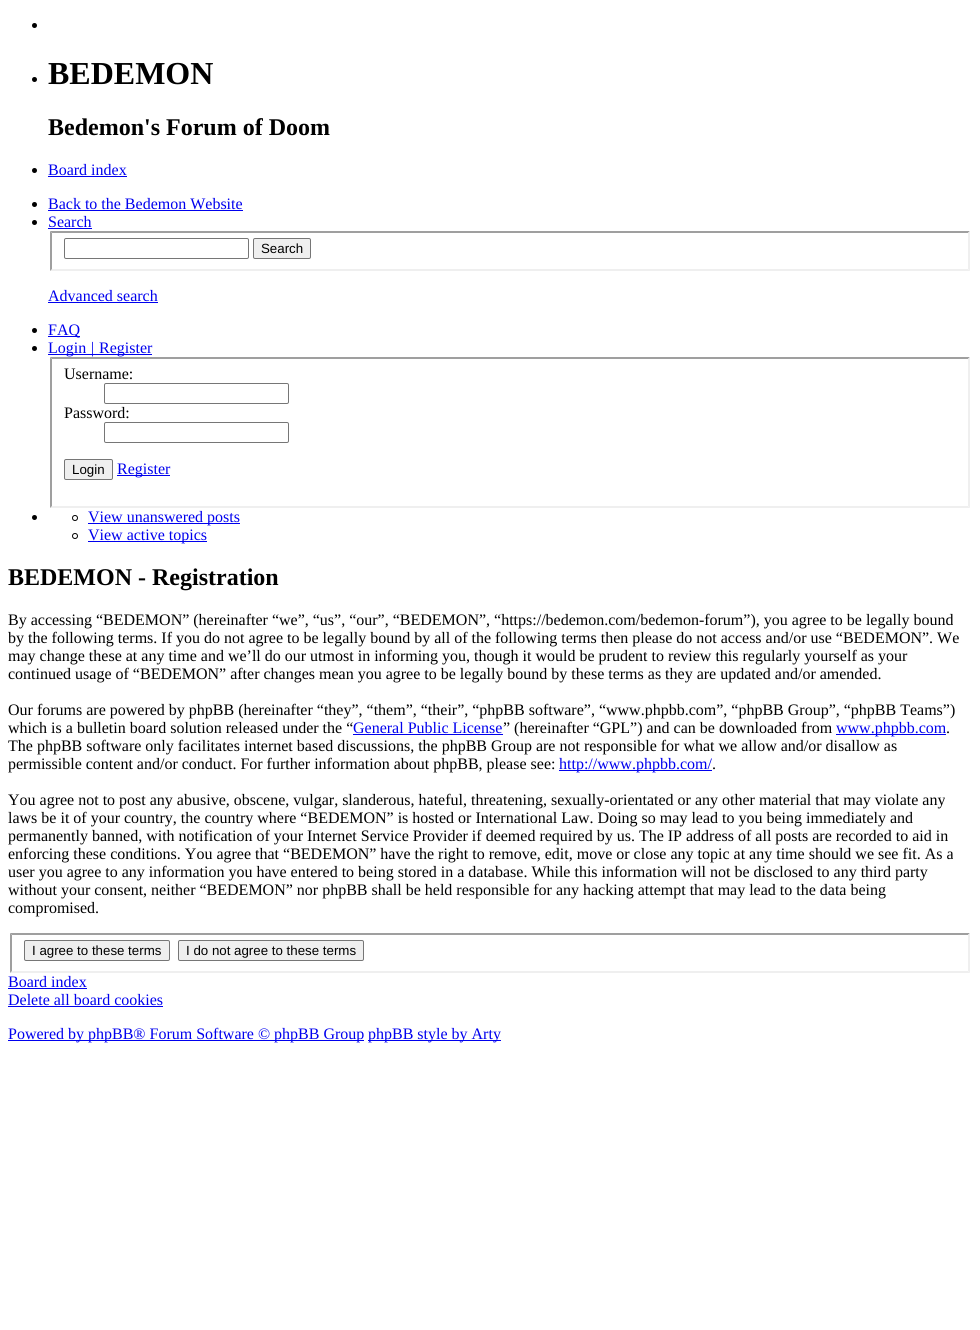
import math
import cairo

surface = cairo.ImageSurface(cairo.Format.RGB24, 980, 1330)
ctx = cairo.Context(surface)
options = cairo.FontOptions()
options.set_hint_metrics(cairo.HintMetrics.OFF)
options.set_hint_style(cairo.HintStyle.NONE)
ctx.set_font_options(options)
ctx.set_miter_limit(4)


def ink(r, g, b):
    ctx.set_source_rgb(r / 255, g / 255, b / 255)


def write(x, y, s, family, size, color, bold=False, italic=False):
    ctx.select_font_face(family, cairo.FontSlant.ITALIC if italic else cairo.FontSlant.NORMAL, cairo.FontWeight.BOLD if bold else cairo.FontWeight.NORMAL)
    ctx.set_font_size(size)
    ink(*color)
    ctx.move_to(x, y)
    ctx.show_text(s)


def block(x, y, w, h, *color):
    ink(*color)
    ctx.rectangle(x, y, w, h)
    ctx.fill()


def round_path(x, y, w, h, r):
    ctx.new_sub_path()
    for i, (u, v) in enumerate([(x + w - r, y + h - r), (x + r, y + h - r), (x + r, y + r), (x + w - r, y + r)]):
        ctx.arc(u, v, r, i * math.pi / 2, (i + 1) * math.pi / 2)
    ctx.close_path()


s1 = dict(family="Liberation Serif", size=32, color=(0, 0, 0), bold=True)
s2 = dict(family="Liberation Serif", size=24, color=(0, 0, 0), bold=True)
s3 = dict(family="Liberation Serif", size=16, color=(0, 0, 238))
s4 = dict(family="Liberation Sans", size=13.3, color=(0, 0, 0))
s5 = dict(family="Liberation Serif", size=16, color=(0, 0, 238), italic=True)
s6 = dict(family="Liberation Serif", size=16, color=(0, 0, 0))

ink(255, 255, 255)
ctx.paint()
ink(0, 0, 0)
ctx.arc(34.5, 25.5, 2.5, 0, 2 * math.pi)
ctx.fill()
ctx.arc(34.5, 79.5, 2.5, 0, 2 * math.pi)
ctx.fill()
write(48, 84, "BEDEMON", **s1)
write(48, 135, "Bedemon's Forum of Doom", **s2)
ctx.new_path()
ctx.arc(34.5, 170.5, 2.5, 0, 2 * math.pi)
ctx.fill()
write(48, 175, "Board index", **s3)
block(48, 176, 79, 1, 0, 0, 238)
ink(0, 0, 0)
ctx.new_path()
ctx.arc(34.5, 204.5, 2.5, 0, 2 * math.pi)
ctx.fill()
write(48, 209, "Back to the Bedemon Website", **s3)
block(48, 210, 195, 1, 0, 0, 238)
ink(0, 0, 0)
ctx.new_path()
ctx.arc(34.5, 222.5, 2.5, 0, 2 * math.pi)
ctx.fill()
write(48, 227, "Search", **s3)
block(48, 228, 44, 1, 0, 0, 238)
ink(159, 159, 159)
ctx.new_path()
ctx.move_to(50, 231)
ctx.line_to(970, 231)
ctx.line_to(968, 233)
ctx.line_to(52, 233)
ctx.close_path()
ctx.fill()
ink(239, 239, 239)
ctx.new_path()
ctx.move_to(970, 231)
ctx.line_to(970, 271)
ctx.line_to(968, 269)
ctx.line_to(968, 233)
ctx.close_path()
ctx.fill()
ctx.new_path()
ctx.move_to(970, 271)
ctx.line_to(50, 271)
ctx.line_to(52, 269)
ctx.line_to(968, 269)
ctx.close_path()
ctx.fill()
ink(159, 159, 159)
ctx.new_path()
ctx.move_to(50, 271)
ctx.line_to(50, 231)
ctx.line_to(52, 233)
ctx.line_to(52, 269)
ctx.close_path()
ctx.fill()
round_path(64.5, 238.5, 184, 20, 1.5)
ink(118, 118, 118)
ctx.set_line_width(1)
ctx.stroke()
ink(239, 239, 239)
round_path(253.5, 238.5, 57, 20, 1.5)
ctx.fill_preserve()
ink(118, 118, 118)
ctx.stroke()
write(261, 253, "Search", **s4)
write(48, 301, "Advanced search", **s3)
block(48, 302, 110, 1, 0, 0, 238)
ink(0, 0, 0)
ctx.new_path()
ctx.arc(34.5, 330.5, 2.5, 0, 2 * math.pi)
ctx.fill()
block(48, 336, 32, 1, 0, 0, 238)
write(48, 335, "FAQ", **s3)
ink(0, 0, 0)
ctx.new_path()
ctx.arc(34.5, 348.5, 2.5, 0, 2 * math.pi)
ctx.fill()
block(48, 354, 104, 1, 0, 0, 238)
write(48, 353, "Login", **s3)
write(90, 353, "|", **s5)
write(99, 353, "Register", **s3)
ink(159, 159, 159)
ctx.new_path()
ctx.move_to(50, 357)
ctx.line_to(970, 357)
ctx.line_to(968, 359)
ctx.line_to(52, 359)
ctx.close_path()
ctx.fill()
ink(239, 239, 239)
ctx.new_path()
ctx.move_to(970, 357)
ctx.line_to(970, 508)
ctx.line_to(968, 506)
ctx.line_to(968, 359)
ctx.close_path()
ctx.fill()
ctx.new_path()
ctx.move_to(970, 508)
ctx.line_to(50, 508)
ctx.line_to(52, 506)
ctx.line_to(968, 506)
ctx.close_path()
ctx.fill()
ink(159, 159, 159)
ctx.new_path()
ctx.move_to(50, 508)
ctx.line_to(50, 357)
ctx.line_to(52, 359)
ctx.line_to(52, 506)
ctx.close_path()
ctx.fill()
write(64, 379, "Username:", **s6)
round_path(104.5, 383.5, 184, 20, 1.5)
ink(118, 118, 118)
ctx.stroke()
write(64, 418, "Password:", **s6)
round_path(104.5, 422.5, 184, 20, 1.5)
ink(118, 118, 118)
ctx.stroke()
ink(239, 239, 239)
round_path(64.5, 459.5, 48, 20, 1.5)
ctx.fill_preserve()
ink(118, 118, 118)
ctx.stroke()
write(72, 474, "Login", **s4)
block(117, 475, 53, 1, 0, 0, 238)
write(117, 474, "Register", **s3)
ink(0, 0, 0)
ctx.new_path()
ctx.arc(34.5, 517.5, 2.5, 0, 2 * math.pi)
ctx.fill()
ctx.arc(75, 518, 2.5, 0, 2 * math.pi)
ctx.stroke()
block(88, 523, 152, 1, 0, 0, 238)
write(88, 522, "View unanswered posts", **s3)
ctx.new_path()
ctx.arc(75, 536, 2.5, 0, 2 * math.pi)
ink(0, 0, 0)
ctx.stroke()
block(88, 541, 119, 1, 0, 0, 238)
write(88, 540, "View active topics", **s3)
write(8, 585, "BEDEMON - Registration", **s2)
write(8, 625, "By accessing “BEDEMON” (hereinafter “we”, “us”, “our”, “BEDEMON”, “https://bedemon.com/bedemon-forum”), you agree to be legally bound", **s6)
write(8, 643, "by the following terms. If you do not agree to be legally bound by all of the following terms then please do not access and/or use “BEDEMON”. We", **s6)
write(8, 661, "may change these at any time and we’ll do our utmost in informing you, though it would be prudent to review this regularly yourself as your", **s6)
write(8, 679, "continued usage of “BEDEMON” after changes mean you agree to be legally bound by these terms as they are updated and/or amended.", **s6)
write(8, 715, "Our forums are powered by phpBB (hereinafter “they”, “them”, “their”, “phpBB software”, “www.phpbb.com”, “phpBB Group”, “phpBB Teams”)", **s6)
write(8, 733, "which is a bulletin board solution released under the “", **s6)
write(353, 733, "General Public License", **s3)
block(353, 734, 150, 1, 0, 0, 238)
write(503, 733, "” (hereinafter “GPL”) and can be downloaded from", **s6)
block(836, 734, 110, 1, 0, 0, 238)
write(836, 733, "www.phpbb.com", **s3)
write(946, 733, ".", **s6)
write(8, 751, "The phpBB software only facilitates internet based discussions, the phpBB Group are not responsible for what we allow and/or disallow as", **s6)
write(8, 769, "permissible content and/or conduct. For further information about phpBB, please see:", **s6)
block(559, 770, 153, 1, 0, 0, 238)
write(559, 769, "http://www.phpbb.com/", **s3)
write(712, 769, ".", **s6)
write(8, 805, "You agree not to post any abusive, obscene, vulgar, slanderous, hateful, threatening, sexually-orientated or any other material that may violate any", **s6)
write(8, 823, "laws be it of your country, the country where “BEDEMON” is hosted or International Law. Doing so may lead to you being immediately and", **s6)
write(8, 841, "permanently banned, with notification of your Internet Service Provider if deemed required by us. The IP address of all posts are recorded to aid in", **s6)
write(8, 859, "enforcing these conditions. You agree that “BEDEMON” have the right to remove, edit, move or close any topic at any time should we see fit. As a", **s6)
write(8, 877, "user you agree to any information you have entered to being stored in a database. While this information will not be disclosed to any third party", **s6)
write(8, 895, "without your consent, neither “BEDEMON” nor phpBB shall be held responsible for any hacking attempt that may lead to the data being", **s6)
write(8, 913, "compromised.", **s6)
ink(159, 159, 159)
ctx.new_path()
ctx.move_to(10, 933)
ctx.line_to(970, 933)
ctx.line_to(968, 935)
ctx.line_to(12, 935)
ctx.close_path()
ctx.fill()
ink(239, 239, 239)
ctx.new_path()
ctx.move_to(970, 933)
ctx.line_to(970, 973)
ctx.line_to(968, 971)
ctx.line_to(968, 935)
ctx.close_path()
ctx.fill()
ctx.new_path()
ctx.move_to(970, 973)
ctx.line_to(10, 973)
ctx.line_to(12, 971)
ctx.line_to(968, 971)
ctx.close_path()
ctx.fill()
ink(159, 159, 159)
ctx.new_path()
ctx.move_to(10, 973)
ctx.line_to(10, 933)
ctx.line_to(12, 935)
ctx.line_to(12, 971)
ctx.close_path()
ctx.fill()
ink(239, 239, 239)
round_path(24.5, 940.5, 145, 20, 1.5)
ctx.fill_preserve()
ink(118, 118, 118)
ctx.stroke()
write(32, 955, "I agree to these terms", **s4)
ink(239, 239, 239)
round_path(178.5, 940.5, 185, 20, 1.5)
ctx.fill_preserve()
ink(118, 118, 118)
ctx.stroke()
write(186, 955, "I do not agree to these terms", **s4)
write(8, 987, "Board index", **s3)
block(8, 988, 79, 1, 0, 0, 238)
write(8, 1005, "Delete all board cookies", **s3)
block(8, 1006, 155, 1, 0, 0, 238)
block(8, 1040, 356, 1, 0, 0, 238)
write(8, 1039, "Powered by phpBB® Forum Software © phpBB Group", **s3)
block(368, 1040, 133, 1, 0, 0, 238)
write(368, 1039, "phpBB style by Arty", **s3)
surface.write_to_png("screenshot.png")
